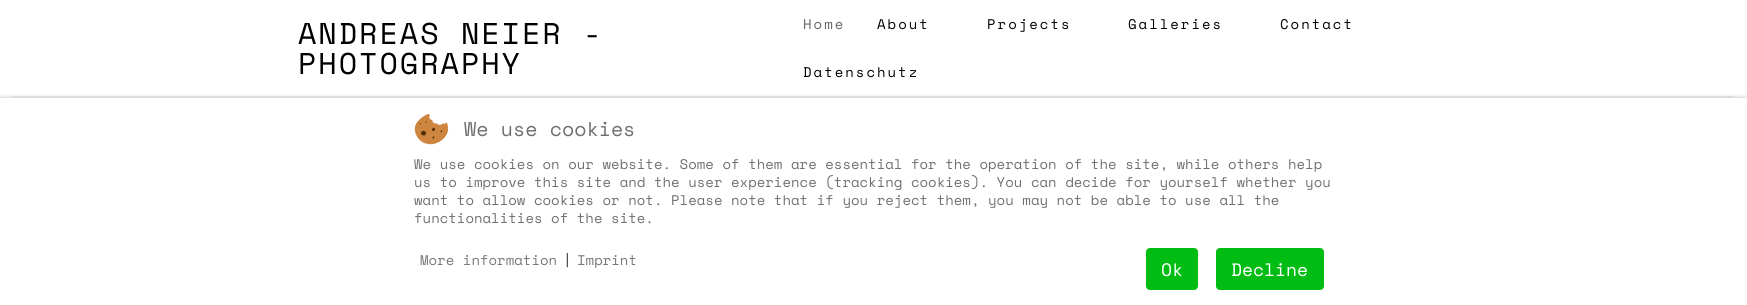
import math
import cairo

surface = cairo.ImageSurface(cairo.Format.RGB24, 1747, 305)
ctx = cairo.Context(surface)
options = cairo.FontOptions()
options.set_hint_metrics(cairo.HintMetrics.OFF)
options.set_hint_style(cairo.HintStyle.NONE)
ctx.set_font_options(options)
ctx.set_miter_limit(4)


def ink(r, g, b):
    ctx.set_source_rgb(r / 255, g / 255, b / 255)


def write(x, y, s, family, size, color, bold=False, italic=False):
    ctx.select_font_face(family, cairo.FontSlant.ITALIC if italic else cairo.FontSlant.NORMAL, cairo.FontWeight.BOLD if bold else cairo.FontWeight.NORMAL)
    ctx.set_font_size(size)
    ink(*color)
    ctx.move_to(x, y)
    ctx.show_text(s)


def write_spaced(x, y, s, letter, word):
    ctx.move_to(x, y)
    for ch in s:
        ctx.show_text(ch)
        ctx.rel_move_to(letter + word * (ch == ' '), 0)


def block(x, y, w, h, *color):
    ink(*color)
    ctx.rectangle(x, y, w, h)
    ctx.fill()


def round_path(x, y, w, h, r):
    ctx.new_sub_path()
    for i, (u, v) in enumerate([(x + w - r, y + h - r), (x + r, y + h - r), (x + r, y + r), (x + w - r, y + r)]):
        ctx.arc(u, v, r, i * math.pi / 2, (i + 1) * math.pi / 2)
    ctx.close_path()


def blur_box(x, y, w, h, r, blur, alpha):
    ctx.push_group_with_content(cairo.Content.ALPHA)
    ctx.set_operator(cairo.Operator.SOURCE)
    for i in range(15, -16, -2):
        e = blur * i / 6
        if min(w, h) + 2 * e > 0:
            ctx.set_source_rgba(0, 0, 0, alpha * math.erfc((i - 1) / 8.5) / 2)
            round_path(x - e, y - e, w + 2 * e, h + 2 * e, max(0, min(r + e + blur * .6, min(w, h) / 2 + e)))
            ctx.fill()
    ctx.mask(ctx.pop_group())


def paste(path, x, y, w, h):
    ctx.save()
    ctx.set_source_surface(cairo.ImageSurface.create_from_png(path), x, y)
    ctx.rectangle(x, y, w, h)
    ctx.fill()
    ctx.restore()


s1 = dict(family="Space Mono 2", size=20, color=(112, 112, 112))
s2 = dict(family="Space Mono 2", size=14, color=(112, 112, 112))
s3 = dict(family="Space Mono 2", size=14, color=(119, 119, 119))
s4 = dict(family="Space Mono 2", size=14, color=(34, 34, 34))
s5 = dict(family="Space Mono 2", size=18, color=(255, 255, 255))

ink(255, 255, 255)
ctx.paint()
ctx.save()
ctx.rectangle(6, 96, 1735, 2)
ctx.clip()
ink(221, 221, 221)
blur_box(15, 30, 1717, 66, 0, 5, 1)
ctx.restore()
ctx.select_font_face("Space Mono")
ctx.set_font_size(30)
ink(0, 0, 0)
write_spaced(298, 44, "ANDREAS NEIER -", 2, 0)
write_spaced(298, 74, "PHOTOGRAPHY", 2, 0)
ctx.select_font_face("Space Mono 2")
ctx.set_font_size(14)
ink(102, 102, 102)
write_spaced(803, 29, "Home", 2, 0)
ink(0, 0, 0)
write_spaced(877, 29, "About", 2, 0)
write_spaced(987, 29, "Projects", 2, 0)
write_spaced(1128, 29, "Galleries", 2, 0)
write_spaced(1280, 29, "Contact", 2, 0)
write_spaced(803, 77, "Datenschutz", 2, 0)
ink(0, 0, 0)
blur_box(0, 98, 1747, 207, 0, 2.5, 0.25)
block(0, 98, 1747, 207, 255, 255, 255)
paste("pic1.png", 414, 113, 35, 32)
write(464, 136, "We use cookies", **s1)
write(414, 169, "We use cookies on our website. Some of them are essential for the operation of the site, while others help", **s2)
write(414, 187, "us to improve this site and the user experience (tracking cookies). You can decide for yourself whether you", **s2)
write(414, 205, "want to allow cookies or not. Please note that if you reject them, you may not be able to use all the", **s2)
write(414, 223, "functionalities of the site.", **s2)
write(420, 265, "More information", **s3)
write(563, 265, "|", **s4)
write(577, 265, "Imprint", **s3)
ink(0, 188, 19)
round_path(1146, 248, 52, 42, 4)
ctx.fill()
write(1161, 276, "Ok", **s5)
ink(0, 188, 19)
round_path(1216, 248, 108, 42, 4)
ctx.fill()
write(1231, 276, "Decline", **s5)
surface.write_to_png("screenshot.png")
